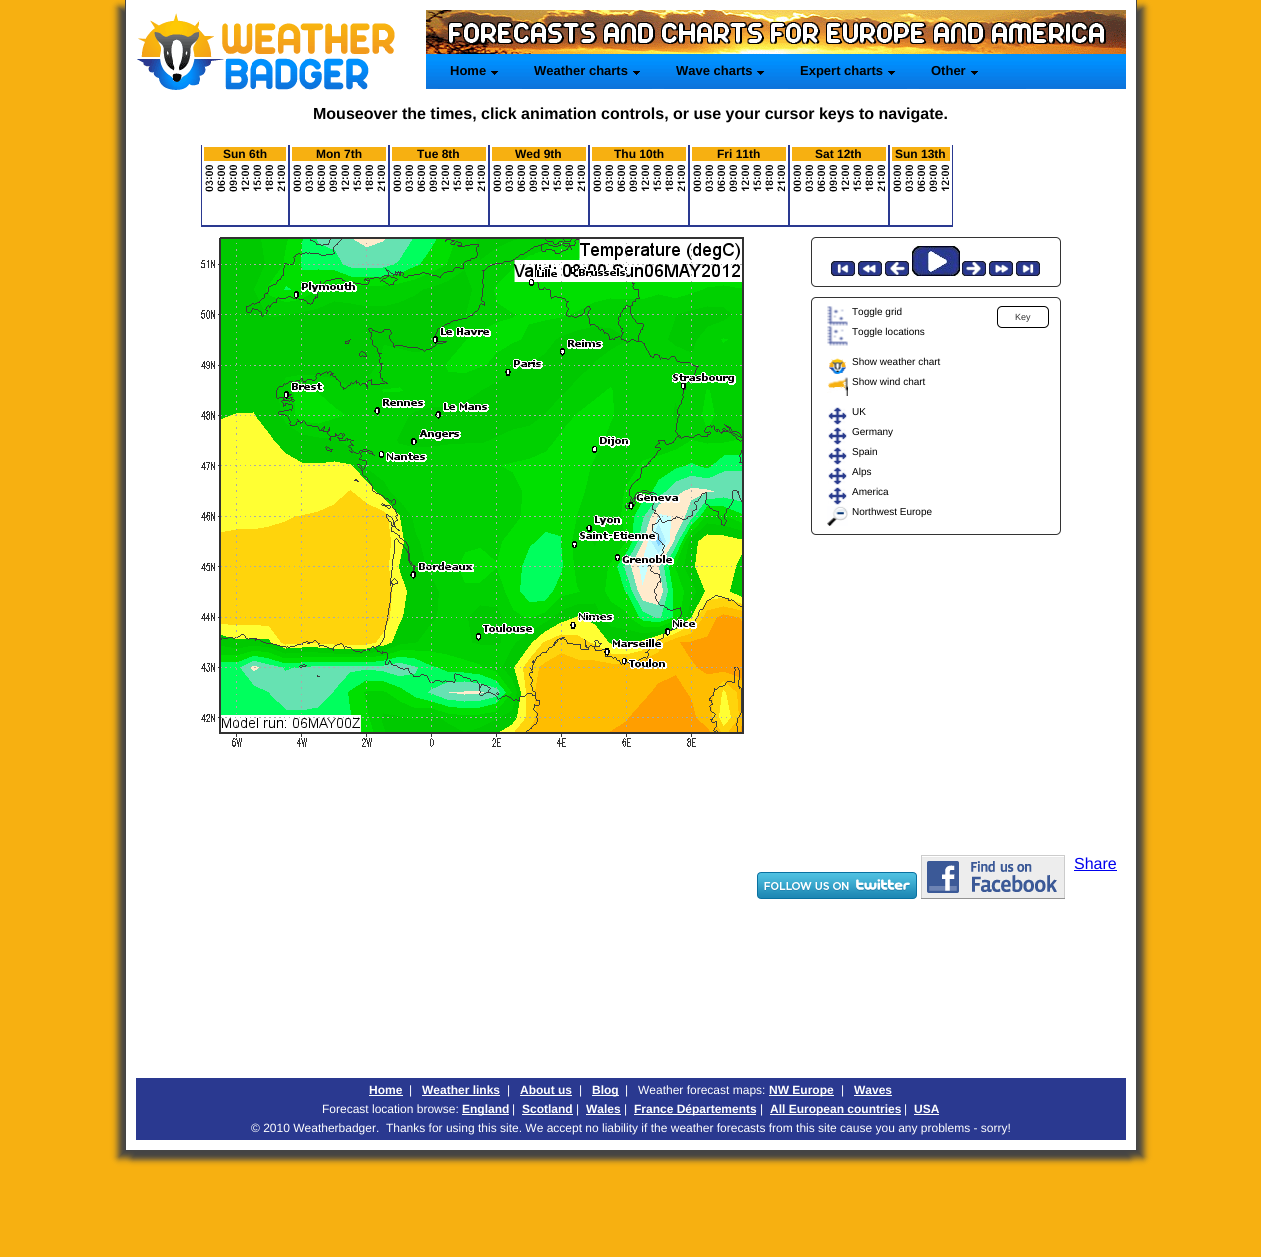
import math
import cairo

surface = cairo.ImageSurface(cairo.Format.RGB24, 1261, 1257)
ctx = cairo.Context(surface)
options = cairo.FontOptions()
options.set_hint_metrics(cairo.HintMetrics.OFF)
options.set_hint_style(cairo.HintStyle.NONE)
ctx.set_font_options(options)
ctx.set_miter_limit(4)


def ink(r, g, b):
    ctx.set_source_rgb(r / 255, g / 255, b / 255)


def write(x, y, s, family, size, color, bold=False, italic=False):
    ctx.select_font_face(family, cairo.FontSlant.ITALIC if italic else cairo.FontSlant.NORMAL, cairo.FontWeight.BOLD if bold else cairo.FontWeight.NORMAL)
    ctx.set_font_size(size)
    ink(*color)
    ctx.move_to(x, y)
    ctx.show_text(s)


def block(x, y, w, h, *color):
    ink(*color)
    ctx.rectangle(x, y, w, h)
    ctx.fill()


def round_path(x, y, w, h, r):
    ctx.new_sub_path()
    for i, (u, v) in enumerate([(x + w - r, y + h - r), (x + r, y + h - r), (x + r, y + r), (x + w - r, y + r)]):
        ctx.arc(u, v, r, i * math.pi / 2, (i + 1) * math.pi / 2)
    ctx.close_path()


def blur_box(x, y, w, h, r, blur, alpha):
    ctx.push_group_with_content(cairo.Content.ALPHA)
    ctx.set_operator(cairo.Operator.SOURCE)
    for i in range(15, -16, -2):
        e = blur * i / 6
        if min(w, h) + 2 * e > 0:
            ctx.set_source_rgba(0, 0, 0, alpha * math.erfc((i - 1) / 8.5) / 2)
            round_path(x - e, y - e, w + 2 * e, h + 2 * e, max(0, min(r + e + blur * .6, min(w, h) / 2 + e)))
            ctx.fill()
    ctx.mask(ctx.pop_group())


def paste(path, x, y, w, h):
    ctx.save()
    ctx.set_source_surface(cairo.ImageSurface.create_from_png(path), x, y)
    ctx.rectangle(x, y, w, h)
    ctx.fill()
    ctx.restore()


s1 = dict(family="Liberation Sans", size=13, color=(0, 0, 0), bold=True)
s2 = dict(family="Liberation Sans", size=16, color=(0, 0, 0), bold=True)
s3 = dict(family="Liberation Sans", size=12, color=(0, 0, 0), bold=True)
s4 = dict(family="Liberation Sans", size=10, color=(0, 0, 0))
s5 = dict(family="Liberation Sans", size=9, color=(51, 51, 51))
s6 = dict(family="Liberation Sans", size=16, color=(0, 0, 238))
s7 = dict(family="Liberation Sans", size=12, color=(255, 255, 255), bold=True)
s8 = dict(family="Liberation Sans", size=12, color=(255, 255, 255))

ink(247, 176, 17)
ctx.paint()
ink(68, 68, 68)
blur_box(118, 7, 1012, 1151, 0, 3.5, 1)
blur_box(132, 7, 1012, 1151, 0, 3.5, 1)
block(126, 0, 1010, 1150, 255, 255, 255)
block(1136, 0, 1, 1151, 68, 68, 68)
block(125, 1150, 1012, 1, 68, 68, 68)
block(125, 0, 1, 1151, 68, 68, 68)
paste("pic1.png", 137, 13, 258, 77)
paste("pic2.png", 426, 10, 700, 44)
paste("pic3.png", 426, 54, 700, 35)
paste("pic4.png", 438, 54, 61, 35)
write(450, 75, "Home", **s1)
paste("pic5.png", 510, 54, 12, 35)
paste("pic6.png", 522, 54, 118, 35)
write(534, 75, "Weather charts", **s1)
paste("pic7.png", 652, 54, 118, 35)
paste("pic8.png", 664, 54, 101, 35)
write(676, 75, "Wave charts", **s1)
paste("pic9.png", 780, 54, 8, 35)
paste("pic10.png", 788, 54, 108, 35)
write(800, 75, "Expert charts", **s1)
paste("pic5.png", 907, 54, 12, 35)
paste("pic11.png", 919, 54, 59, 35)
write(931, 75, "Other", **s1)
write(313, 119, "Mouseover the times, click animation controls, or use your cursor keys to navigate.", **s2)
block(288, 145, 1, 82, 42, 57, 144)
block(201, 225, 88, 2, 42, 57, 144)
block(201, 145, 1, 82, 42, 57, 144)
block(204, 147, 82, 14, 247, 176, 17)
write(223, 158, "Sun 6th", **s3)
paste("pic12.png", 205, 165, 8, 27)
paste("pic13.png", 217, 165, 8, 27)
paste("pic14.png", 229, 165, 8, 27)
paste("pic15.png", 241, 165, 8, 26)
paste("pic16.png", 253, 165, 8, 26)
paste("pic17.png", 265, 165, 8, 26)
paste("pic18.png", 277, 165, 8, 27)
block(388, 145, 1, 82, 42, 57, 144)
block(289, 225, 100, 2, 42, 57, 144)
block(289, 145, 1, 82, 42, 57, 144)
block(292, 147, 94, 14, 247, 176, 17)
write(316, 158, "Mon 7th", **s3)
paste("pic19.png", 293, 165, 8, 27)
paste("pic12.png", 305, 165, 8, 27)
paste("pic13.png", 317, 165, 8, 27)
paste("pic14.png", 329, 165, 8, 27)
paste("pic15.png", 341, 165, 8, 26)
paste("pic16.png", 353, 165, 8, 26)
paste("pic17.png", 365, 165, 8, 26)
paste("pic18.png", 377, 165, 8, 27)
block(488, 145, 1, 82, 42, 57, 144)
block(389, 225, 100, 2, 42, 57, 144)
block(389, 145, 1, 82, 42, 57, 144)
block(392, 147, 94, 14, 247, 176, 17)
write(417, 158, "Tue 8th", **s3)
paste("pic19.png", 393, 165, 8, 27)
paste("pic12.png", 405, 165, 8, 27)
paste("pic13.png", 417, 165, 8, 27)
paste("pic14.png", 429, 165, 8, 27)
paste("pic15.png", 441, 165, 8, 26)
paste("pic16.png", 453, 165, 8, 26)
paste("pic17.png", 465, 165, 8, 26)
paste("pic18.png", 477, 165, 8, 27)
block(588, 145, 1, 82, 42, 57, 144)
block(489, 225, 100, 2, 42, 57, 144)
block(489, 145, 1, 82, 42, 57, 144)
block(492, 147, 94, 14, 247, 176, 17)
write(515, 158, "Wed 9th", **s3)
paste("pic19.png", 493, 165, 8, 27)
paste("pic12.png", 505, 165, 8, 27)
paste("pic13.png", 517, 165, 8, 27)
paste("pic14.png", 529, 165, 8, 27)
paste("pic15.png", 541, 165, 8, 26)
paste("pic16.png", 553, 165, 8, 26)
paste("pic17.png", 565, 165, 8, 26)
paste("pic18.png", 577, 165, 8, 27)
block(688, 145, 1, 82, 42, 57, 144)
block(589, 225, 100, 2, 42, 57, 144)
block(589, 145, 1, 82, 42, 57, 144)
block(592, 147, 94, 14, 247, 176, 17)
write(614, 158, "Thu 10th", **s3)
paste("pic19.png", 593, 165, 8, 27)
paste("pic12.png", 605, 165, 8, 27)
paste("pic13.png", 617, 165, 8, 27)
paste("pic14.png", 629, 165, 8, 27)
paste("pic15.png", 641, 165, 8, 26)
paste("pic16.png", 653, 165, 8, 26)
paste("pic17.png", 665, 165, 8, 26)
paste("pic18.png", 677, 165, 8, 27)
block(788, 145, 1, 82, 42, 57, 144)
block(689, 225, 100, 2, 42, 57, 144)
block(689, 145, 1, 82, 42, 57, 144)
block(692, 147, 94, 14, 247, 176, 17)
write(717, 158, "Fri 11th", **s3)
paste("pic19.png", 693, 165, 8, 27)
paste("pic12.png", 705, 165, 8, 27)
paste("pic13.png", 717, 165, 8, 27)
paste("pic14.png", 729, 165, 8, 27)
paste("pic15.png", 741, 165, 8, 26)
paste("pic16.png", 753, 165, 8, 26)
paste("pic17.png", 765, 165, 8, 26)
paste("pic18.png", 777, 165, 8, 27)
block(888, 145, 1, 82, 42, 57, 144)
block(789, 225, 100, 2, 42, 57, 144)
block(789, 145, 1, 82, 42, 57, 144)
block(792, 147, 94, 14, 247, 176, 17)
write(815, 158, "Sat 12th", **s3)
paste("pic19.png", 793, 165, 8, 27)
paste("pic12.png", 805, 165, 8, 27)
paste("pic13.png", 817, 165, 8, 27)
paste("pic14.png", 829, 165, 8, 27)
paste("pic15.png", 841, 165, 8, 26)
paste("pic16.png", 853, 165, 8, 26)
paste("pic17.png", 865, 165, 8, 26)
paste("pic18.png", 877, 165, 8, 27)
block(952, 145, 1, 82, 42, 57, 144)
block(889, 225, 64, 2, 42, 57, 144)
block(889, 145, 1, 82, 42, 57, 144)
block(892, 147, 58, 14, 247, 176, 17)
write(895, 158, "Sun 13th", **s3)
paste("pic19.png", 893, 165, 8, 27)
paste("pic12.png", 905, 165, 8, 27)
paste("pic13.png", 917, 165, 8, 27)
paste("pic14.png", 929, 165, 8, 27)
paste("pic15.png", 941, 165, 8, 26)
paste("pic20.png", 201, 237, 543, 510)
paste("pic22.png", 284, 267, 452, 402)
paste("pic21.png", 201, 237, 543, 510)
round_path(811.5, 237.5, 249, 49, 4.5)
ink(51, 51, 51)
ctx.set_line_width(1)
ctx.stroke()
paste("pic23.png", 831, 261, 24, 15)
paste("pic24.png", 858, 261, 24, 15)
paste("pic25.png", 885, 261, 24, 15)
paste("pic26.png", 912, 246, 48, 30)
paste("pic27.png", 962, 261, 24, 15)
paste("pic28.png", 989, 261, 24, 15)
paste("pic29.png", 1016, 261, 24, 15)
round_path(811.5, 297.5, 249, 237, 4.5)
ctx.stroke()
paste("pic30.png", 827, 306, 21, 20)
write(852, 315, "Toggle grid", **s4)
round_path(997.5, 306.5, 51, 21, 4.5)
ctx.stroke()
write(1015, 320, "Key", **s5)
paste("pic30.png", 827, 326, 21, 20)
write(852, 335, "Toggle locations", **s4)
paste("pic31.png", 829, 358, 17, 16)
write(852, 365, "Show weather chart", **s4)
paste("pic32.png", 827, 377, 21, 19)
write(852, 385, "Show wind chart", **s4)
paste("pic33.png", 828, 407, 19, 18)
write(852, 415, "UK", **s4)
paste("pic33.png", 828, 427, 19, 18)
write(852, 435, "Germany", **s4)
paste("pic33.png", 828, 447, 19, 18)
write(852, 455, "Spain", **s4)
paste("pic33.png", 828, 467, 19, 18)
write(852, 475, "Alps", **s4)
paste("pic33.png", 828, 487, 19, 18)
write(852, 495, "America", **s4)
paste("pic34.png", 827, 506, 21, 20)
write(852, 515, "Northwest Europe", **s4)
paste("pic35.png", 921, 855, 144, 44)
write(1074, 869, "Share", **s6)
block(1074, 870, 43, 1, 0, 0, 238)
paste("pic36.png", 757, 872, 160, 27)
block(136, 1078, 990, 62, 42, 57, 144)
write(369, 1094, "Home", **s7)
block(369, 1095, 34, 1, 255, 255, 255)
write(409, 1094, "|", **s8)
write(422, 1094, "Weather links", **s7)
block(422, 1095, 78, 1, 255, 255, 255)
write(507, 1094, "|", **s8)
write(520, 1094, "About us", **s7)
block(520, 1095, 52, 1, 255, 255, 255)
write(579, 1094, "|", **s8)
block(592, 1095, 27, 1, 255, 255, 255)
write(592, 1094, "Blog", **s7)
write(625, 1094, "|", **s8)
write(638, 1094, "Weather forecast maps:", **s8)
block(769, 1095, 65, 1, 255, 255, 255)
write(769, 1094, "NW Europe", **s7)
write(841, 1094, "|", **s8)
write(854, 1094, "Waves", **s7)
block(854, 1095, 38, 1, 255, 255, 255)
write(322, 1113, "Forecast location browse:", **s8)
block(462, 1114, 47, 1, 255, 255, 255)
write(462, 1113, "England", **s7)
write(512, 1113, "|", **s8)
write(522, 1113, "Scotland", **s7)
block(522, 1114, 51, 1, 255, 255, 255)
write(576, 1113, "|", **s8)
write(586, 1113, "Wales", **s7)
block(586, 1114, 35, 1, 255, 255, 255)
write(624, 1113, "|", **s8)
block(634, 1114, 122, 1, 255, 255, 255)
write(634, 1113, "France Départements", **s7)
write(760, 1113, "|", **s8)
block(770, 1114, 131, 1, 255, 255, 255)
write(770, 1113, "All European countries", **s7)
write(904, 1113, "|", **s8)
write(914, 1113, "USA", **s7)
block(914, 1114, 25, 1, 255, 255, 255)
write(251, 1132, "© 2010 Weatherbadger.  Thanks for using this site. We accept no liability if the weather forecasts from this site cause you any problems - sorry!", **s8)
surface.write_to_png("screenshot.png")
